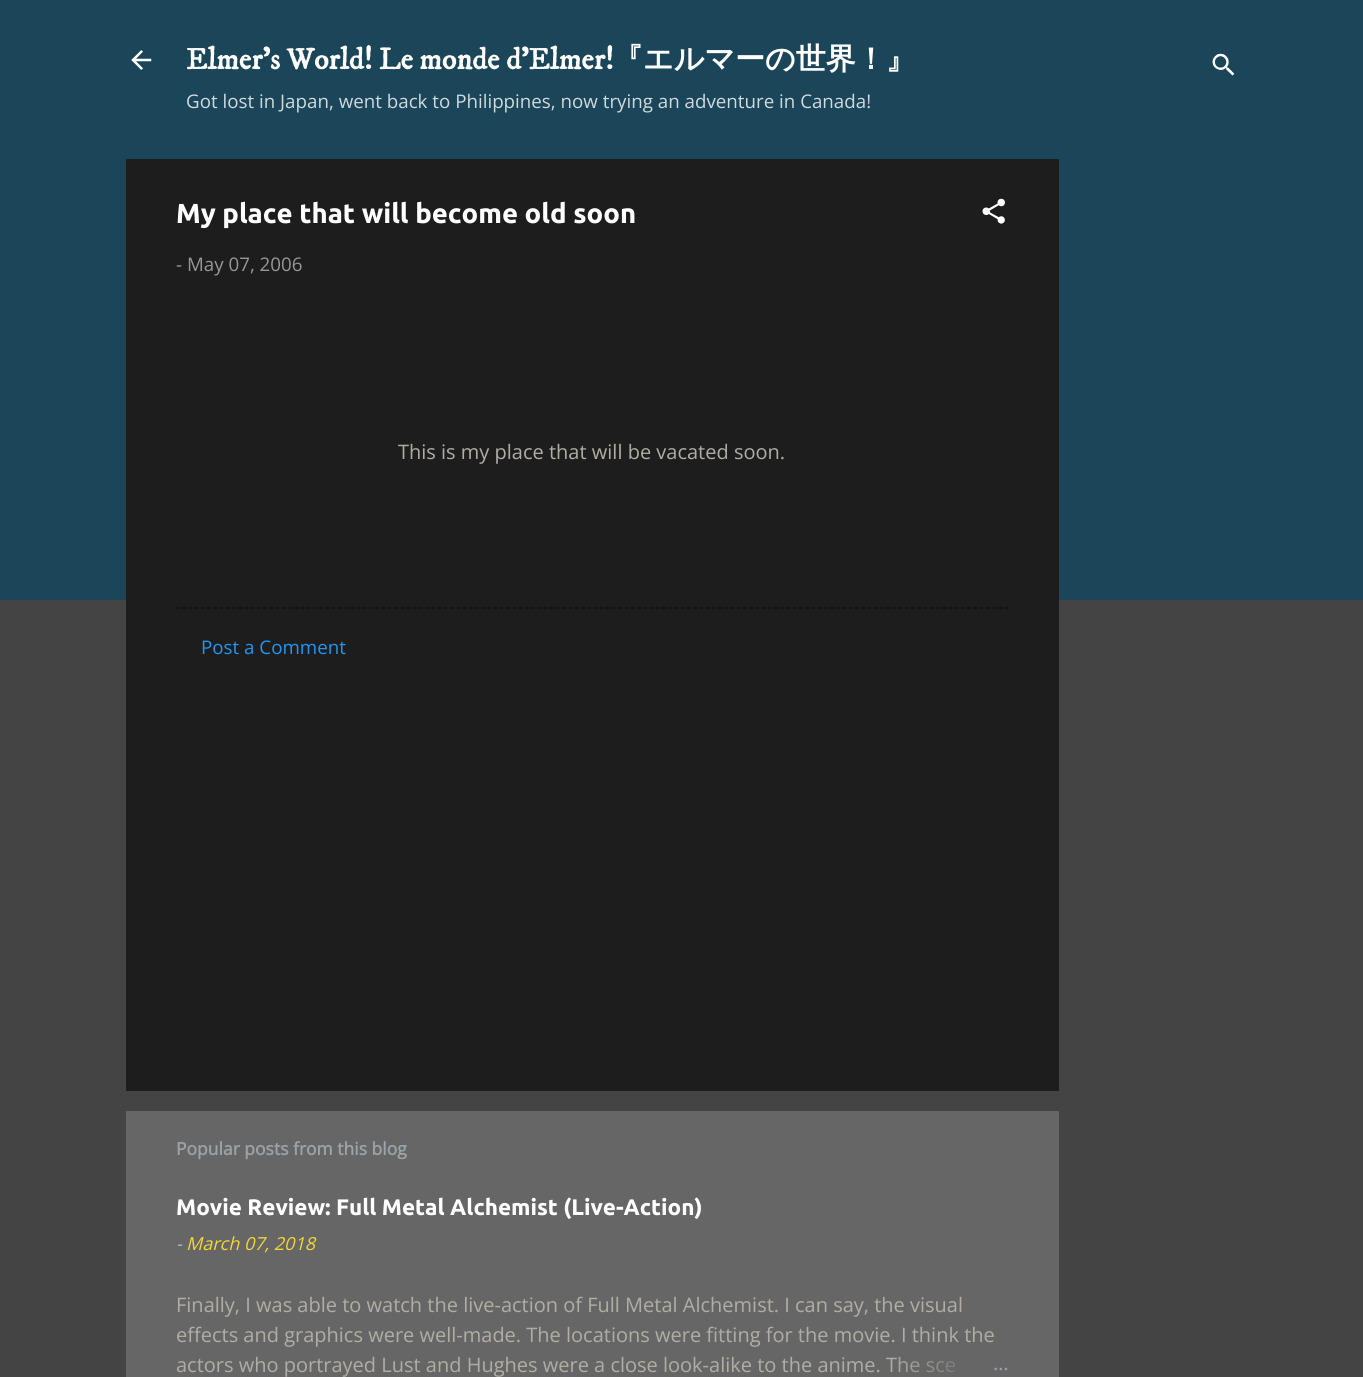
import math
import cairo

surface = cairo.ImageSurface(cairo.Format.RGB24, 1363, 1377)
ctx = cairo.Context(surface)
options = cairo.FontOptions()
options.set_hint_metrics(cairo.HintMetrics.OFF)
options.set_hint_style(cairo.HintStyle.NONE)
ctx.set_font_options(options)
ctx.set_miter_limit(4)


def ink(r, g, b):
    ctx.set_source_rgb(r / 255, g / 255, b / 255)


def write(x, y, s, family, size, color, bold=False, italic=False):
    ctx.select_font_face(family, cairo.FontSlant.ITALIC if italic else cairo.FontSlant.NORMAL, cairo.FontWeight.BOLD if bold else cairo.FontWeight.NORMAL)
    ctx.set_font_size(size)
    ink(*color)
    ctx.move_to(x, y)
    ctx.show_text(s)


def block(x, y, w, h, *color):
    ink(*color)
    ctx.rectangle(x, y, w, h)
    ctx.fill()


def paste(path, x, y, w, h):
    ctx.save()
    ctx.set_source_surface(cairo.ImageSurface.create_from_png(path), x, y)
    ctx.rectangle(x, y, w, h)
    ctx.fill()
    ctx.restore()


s1 = dict(family="IM FELL DW Pica", size=30, color=(255, 255, 255), bold=True)
s2 = dict(family="WenQuanYi Zen Hei", size=30, color=(255, 255, 255), bold=True)
s3 = dict(family="Open Sans", size=18.75, color=(209, 218, 222))
s4 = dict(family="Ubuntu", size=27.5, color=(255, 255, 255), bold=True)
s5 = dict(family="Open Sans", size=18.75, color=(151, 151, 151))
s6 = dict(family="Open Sans", size=20, color=(176, 174, 164))
s7 = dict(family="Open Sans", size=18.75, color=(33, 150, 243))
s8 = dict(family="Open Sans", size=17.5, color=(155, 162, 168), bold=True)
s9 = dict(family="Ubuntu", size=22.5, color=(255, 255, 255), bold=True)
s10 = dict(family="Open Sans", size=18, color=(185, 185, 185), italic=True)
s11 = dict(family="Open Sans", size=18, color=(244, 215, 55), italic=True)
s12 = dict(family="Open Sans", size=20, color=(155, 162, 168))

ink(68, 68, 68)
ctx.paint()
block(0, 0, 1363, 600, 27, 69, 88)
paste("pic1.png", 131, 50, 21, 20)
write(186, 69, "Elmer's World! Le monde d'Elmer!", **s1)
write(613, 69, "『エルマーの世界！』", **s2)
write(186, 108, "Got lost in Japan, went back to Philippines, now trying an adventure in Canada!", **s3)
paste("pic2.png", 1212, 53, 23, 23)
block(126, 159, 933, 932, 29, 29, 29)
write(176, 223, "My place that will become old soon", **s4)
paste("pic3.png", 982, 198, 23, 26)
write(176, 271, "- May 07, 2006", **s5)
write(398, 459, "This is my place that will be vacated soon.", **s6)
ctx.new_path()
ctx.move_to(176, 608)
ctx.line_to(1009, 608)
ink(13, 13, 13)
ctx.set_line_width(1.2)
ctx.set_dash([3.75, 2.48])
ctx.stroke()
write(201, 654, "Post a Comment", **s7)
block(126, 1111, 933, 266, 102, 102, 102)
write(176, 1155, "Popular posts from this blog", **s8)
write(176, 1215, "Movie Review: Full Metal Alchemist (Live-Action)", **s9)
write(176, 1250, "-", **s10)
write(186, 1250, "March 07, 2018", **s11)
write(176, 1312, "Finally, I was able to watch the live-action of Full Metal Alchemist. I can say, the visual", **s6)
write(176, 1342, "effects and graphics were well-made. The locations were fitting for the movie. I think the", **s6)
write(176, 1372, "actors who portrayed Lust and Hughes were a close look-alike to the anime. The sce", **s6)
gradient = cairo.LinearGradient(1009, 1364, 889, 1364)
gradient.add_color_stop_rgba(0, 0.4, 0.4, 0.4, 1)
gradient.add_color_stop_rgba(0.2, 0.4, 0.4, 0.4, 1)
gradient.add_color_stop_rgba(1, 0.4, 0.4, 0.4, 0)
ctx.set_source(gradient)
ctx.rectangle(893, 1357, 62, 16)
ctx.fill()
write(993, 1370, "…", **s12)
surface.write_to_png("screenshot.png")
